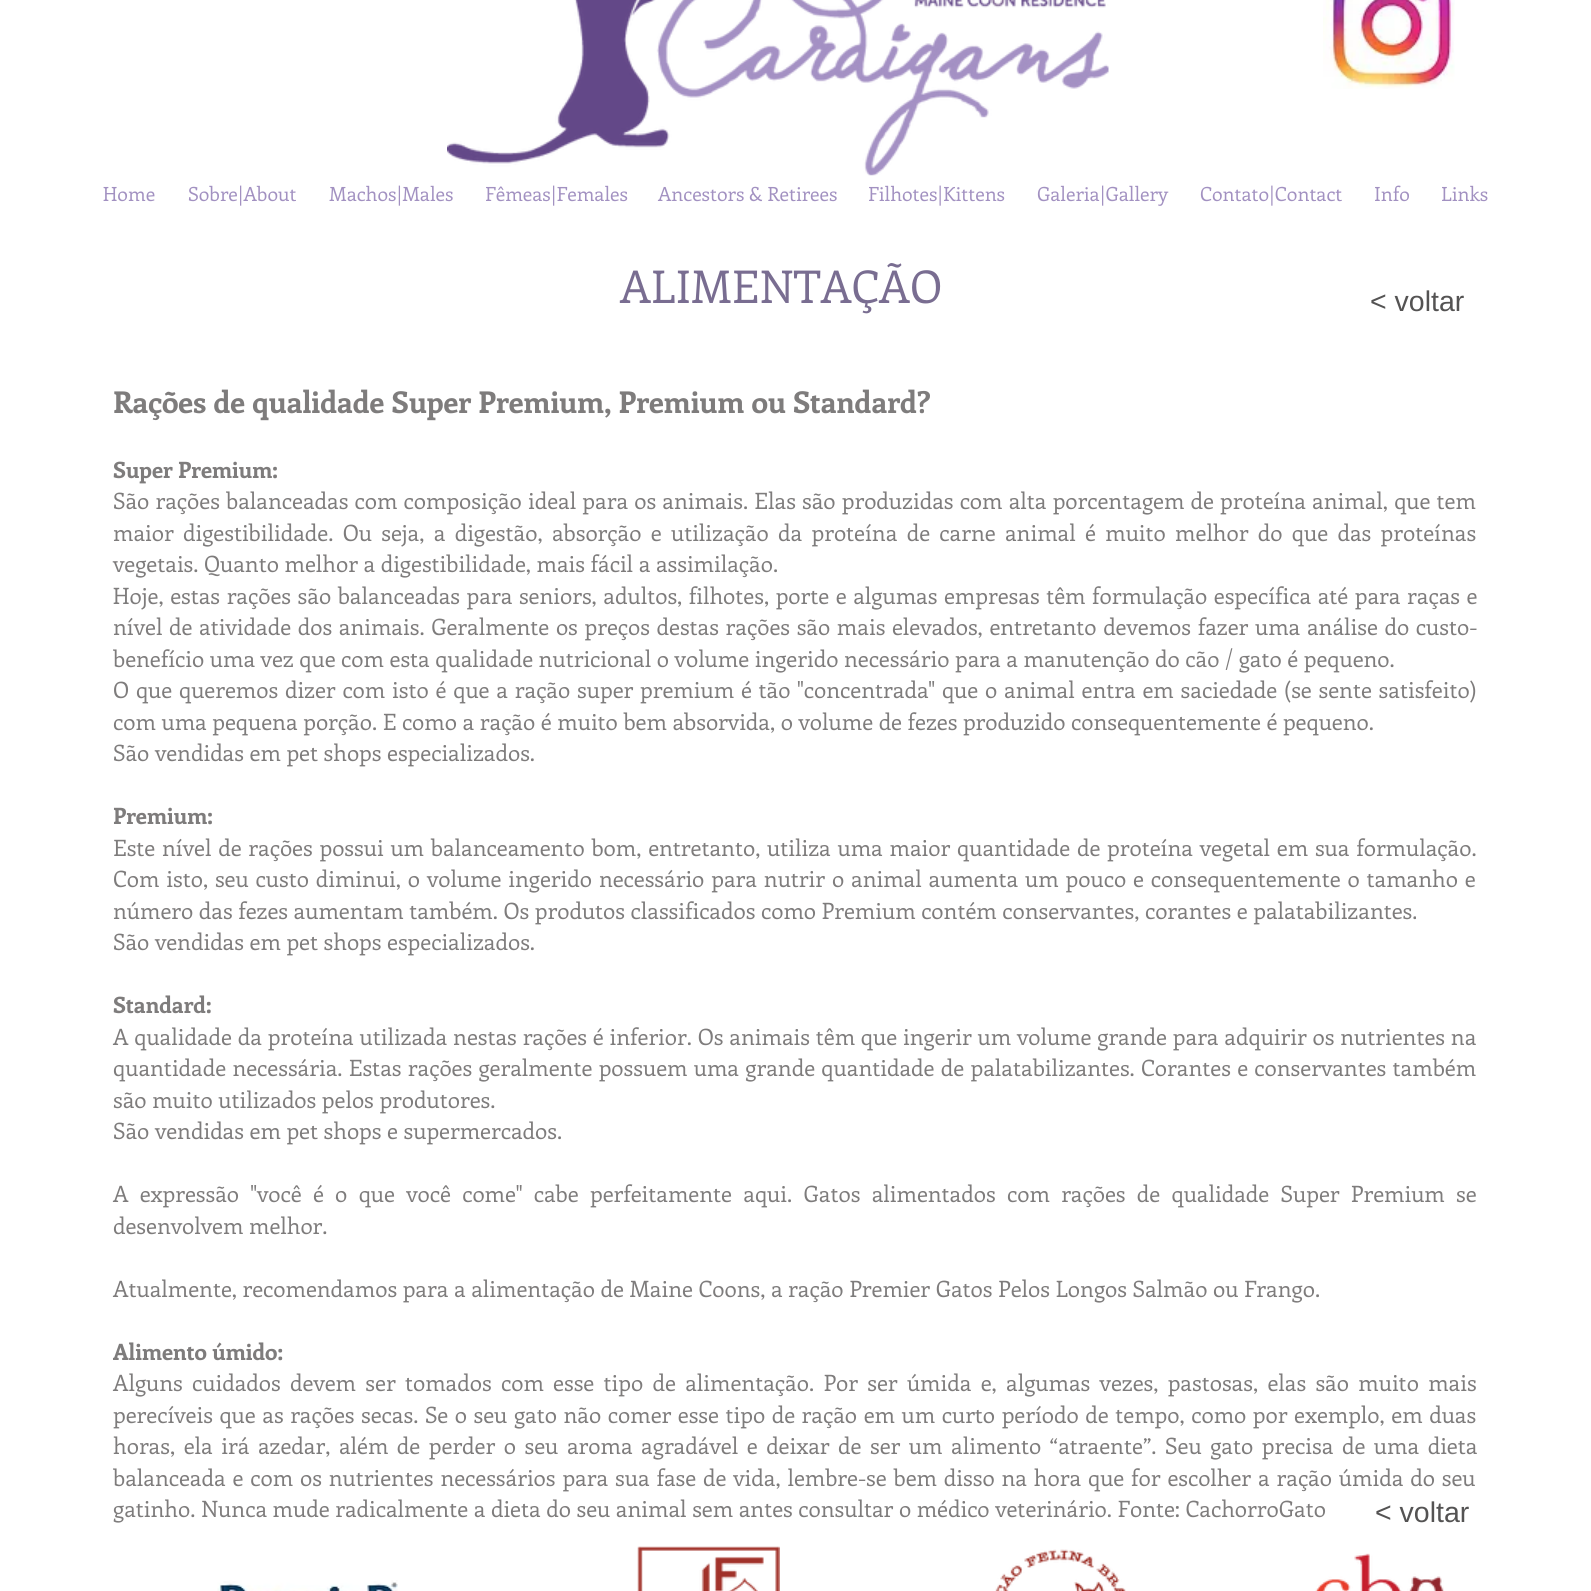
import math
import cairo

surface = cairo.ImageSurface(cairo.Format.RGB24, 1591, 1591)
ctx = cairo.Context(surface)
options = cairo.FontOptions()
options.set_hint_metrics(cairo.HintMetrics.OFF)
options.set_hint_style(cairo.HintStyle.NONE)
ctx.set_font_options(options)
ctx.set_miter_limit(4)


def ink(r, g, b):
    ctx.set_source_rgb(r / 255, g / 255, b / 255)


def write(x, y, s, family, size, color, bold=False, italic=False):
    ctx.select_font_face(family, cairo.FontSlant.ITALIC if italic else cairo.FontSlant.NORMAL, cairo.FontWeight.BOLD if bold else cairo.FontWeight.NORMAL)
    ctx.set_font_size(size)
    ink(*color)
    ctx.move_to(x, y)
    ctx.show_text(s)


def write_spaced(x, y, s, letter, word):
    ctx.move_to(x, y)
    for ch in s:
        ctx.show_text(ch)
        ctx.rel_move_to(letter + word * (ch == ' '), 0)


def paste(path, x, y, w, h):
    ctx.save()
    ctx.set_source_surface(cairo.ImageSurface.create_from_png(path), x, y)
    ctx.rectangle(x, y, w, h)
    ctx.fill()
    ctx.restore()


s1 = dict(family="Enriqueta", size=19.5, color=(162, 145, 193))
s2 = dict(family="Enriqueta", size=45, color=(121, 109, 145))
s3 = dict(family="Liberation Sans", size=28.5, color=(84, 83, 83))
s4 = dict(family="Enriqueta", size=30, color=(126, 124, 124), bold=True)
s5 = dict(family="Enriqueta", size=22.5, color=(126, 124, 124), bold=True)
s6 = dict(family="Enriqueta", size=22.5, color=(126, 124, 124))

ink(255, 255, 255)
ctx.paint()
paste("pic1.png", 447, 0, 662, 176)
paste("pic2.png", 1323, 0, 132, 89)
write(103, 201, "Home", **s1)
write(188, 201, "Sobre|About", **s1)
write(329, 201, "Machos|Males", **s1)
write(485, 201, "Fêmeas|Females", **s1)
write(658, 201, "Ancestors & Retirees", **s1)
write(868, 201, "Filhotes|Kittens", **s1)
write(1037, 201, "Galeria|Gallery", **s1)
write(1200, 201, "Contato|Contact", **s1)
write(1374, 201, "Info", **s1)
write(1441, 201, "Links", **s1)
write(620, 303, "ALIMENTAÇÃO", **s2)
write(1370, 311, "< voltar", **s3)
write(113, 413, "Rações de qualidade Super Premium, Premium ou Standard?", **s4)
write(113, 478, "Super Premium:", **s5)
ctx.select_font_face("Enriqueta")
write_spaced(113, 509, "São rações balanceadas com composição ideal para os animais. Elas são produzidas com alta porcentagem de proteína animal, que tem", 0, 0.6)
write_spaced(113, 541, "maior digestibilidade. Ou seja, a digestão, absorção e utilização da proteína de carne animal é muito melhor do que das proteínas", 0, 3.75)
write(113, 572, "vegetais. Quanto melhor a digestibilidade, mais fácil a assimilação.", **s6)
write_spaced(113, 604, "Hoje, estas rações são balanceadas para seniors, adultos, filhotes, porte e algumas empresas têm formulação específica até para raças e", 0, 1)
write_spaced(113, 635, "nível de atividade dos animais. Geralmente os preços destas rações são mais elevados, entretanto devemos fazer uma análise do custo-", 0, 1.1)
write(113, 667, "benefício uma vez que com esta qualidade nutricional o volume ingerido necessário para a manutenção do cão / gato é pequeno.", **s6)
write_spaced(113, 698, "O que queremos dizer com isto é que a ração super premium é tão \"concentrada\" que o animal entra em saciedade (se sente satisfeito)", 0, 1.25)
write(113, 730, "com uma pequena porção. E como a ração é muito bem absorvida, o volume de fezes produzido consequentemente é pequeno.", **s6)
write(113, 761, "São vendidas em pet shops especializados.", **s6)
write(113, 824, "Premium:", **s5)
ctx.select_font_face("Enriqueta")
write_spaced(113, 856, "Este nível de rações possui um balanceamento bom, entretanto, utiliza uma maior quantidade de proteína vegetal em sua formulação.", 0, 1.2)
write_spaced(113, 887, "Com isto, seu custo diminui, o volume ingerido necessário para nutrir o animal aumenta um pouco e consequentemente o tamanho e", 0, 1.3)
write(113, 919, "número das fezes aumentam também. Os produtos classificados como Premium contém conservantes, corantes e palatabilizantes.", **s6)
write(113, 950, "São vendidas em pet shops especializados.", **s6)
write(113, 1013, "Standard:", **s5)
ctx.select_font_face("Enriqueta")
write_spaced(113, 1045, "A qualidade da proteína utilizada nestas rações é inferior. Os animais têm que ingerir um volume grande para adquirir os nutrientes na", 0, 0.25)
write_spaced(113, 1076, "quantidade necessária. Estas rações geralmente possuem uma grande quantidade de palatabilizantes. Corantes e conservantes também", 0, 0.75)
write(113, 1108, "são muito utilizados pelos produtores.", **s6)
write(113, 1139, "São vendidas em pet shops e supermercados.", **s6)
write_spaced(113, 1202, "A expressão \"você é o que você come\" cabe perfeitamente aqui. Gatos alimentados com rações de qualidade Super Premium se", 0, 5.75)
write(113, 1234, "desenvolvem melhor.", **s6)
write(113, 1297, "Atualmente, recomendamos para a alimentação de Maine Coons, a ração Premier Gatos Pelos Longos Salmão ou Frango.", **s6)
write(113, 1360, "Alimento úmido:", **s5)
ctx.select_font_face("Enriqueta")
write_spaced(113, 1391, "Alguns cuidados devem ser tomados com esse tipo de alimentação. Por ser úmida e, algumas vezes, pastosas, elas são muito mais", 0, 3.75)
write_spaced(113, 1423, "perecíveis que as rações secas. Se o seu gato não comer esse tipo de ração em um curto período de tempo, como por exemplo, em duas", 0, 1)
write_spaced(113, 1454, "horas, ela irá azedar, além de perder o seu aroma agradável e deixar de ser um alimento “atraente”. Seu gato precisa de uma dieta", 0, 3)
write_spaced(113, 1486, "balanceada e com os nutrientes necessários para sua fase de vida, lembre-se bem disso na hora que for escolher a ração úmida do seu", 0, 1.3)
write(113, 1517, "gatinho. Nunca mude radicalmente a dieta do seu animal sem antes consultar o médico veterinário. Fonte: CachorroGato", **s6)
write(1375, 1522, "< voltar", **s3)
paste("pic3.png", 217, 1580, 181, 11)
paste("pic4.png", 637, 1546, 143, 45)
paste("pic5.png", 995, 1549, 131, 42)
paste("pic6.png", 1315, 1553, 129, 38)
surface.write_to_png("screenshot.png")
